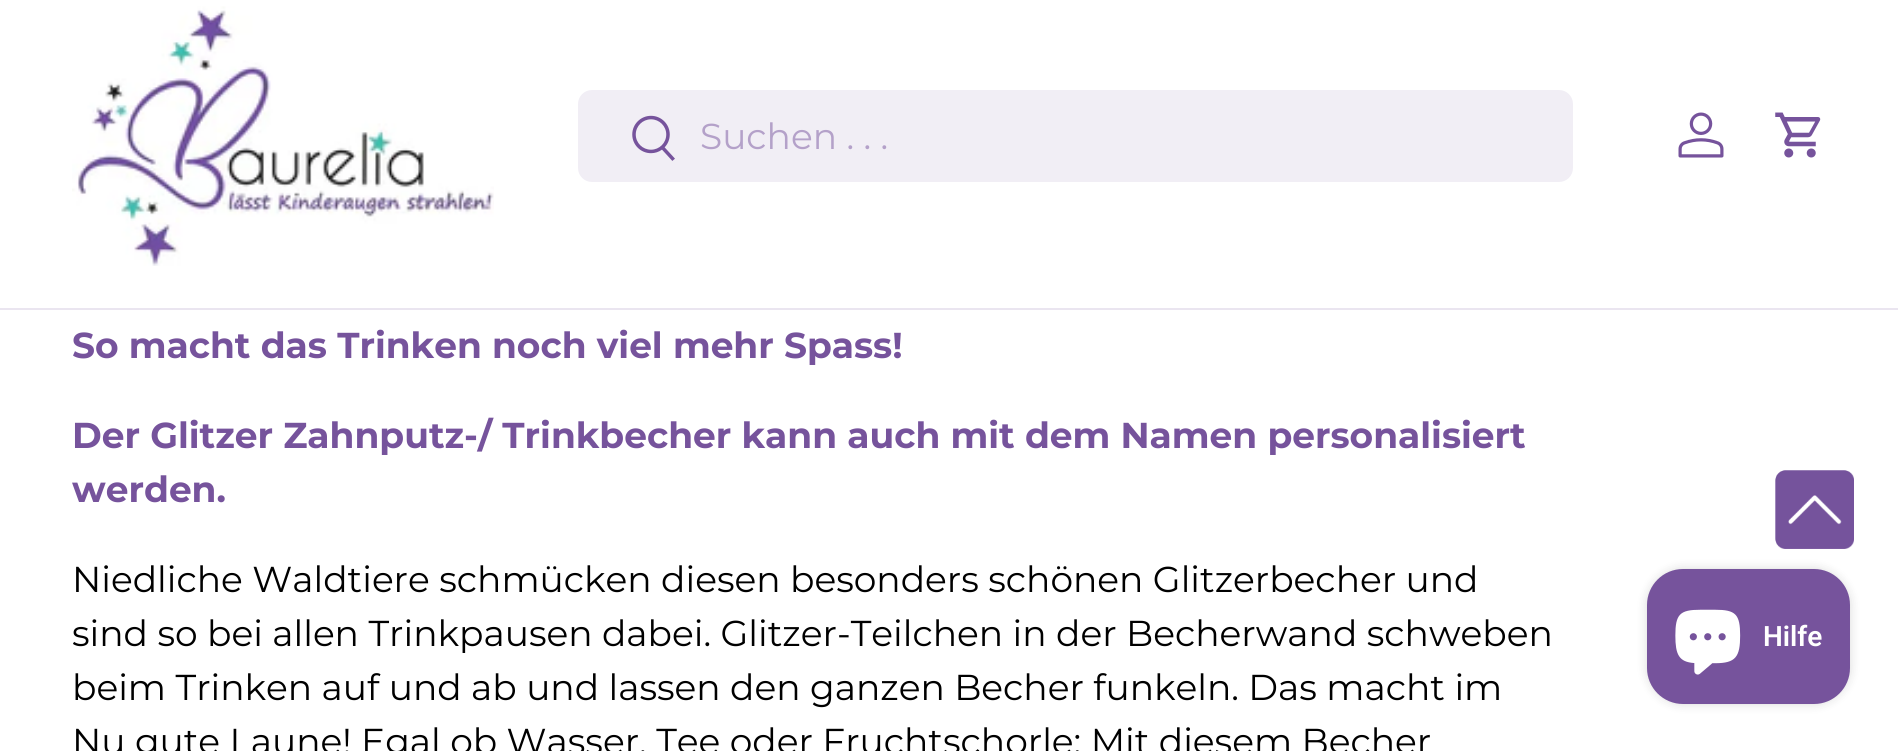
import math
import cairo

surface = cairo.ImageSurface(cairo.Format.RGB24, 1898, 751)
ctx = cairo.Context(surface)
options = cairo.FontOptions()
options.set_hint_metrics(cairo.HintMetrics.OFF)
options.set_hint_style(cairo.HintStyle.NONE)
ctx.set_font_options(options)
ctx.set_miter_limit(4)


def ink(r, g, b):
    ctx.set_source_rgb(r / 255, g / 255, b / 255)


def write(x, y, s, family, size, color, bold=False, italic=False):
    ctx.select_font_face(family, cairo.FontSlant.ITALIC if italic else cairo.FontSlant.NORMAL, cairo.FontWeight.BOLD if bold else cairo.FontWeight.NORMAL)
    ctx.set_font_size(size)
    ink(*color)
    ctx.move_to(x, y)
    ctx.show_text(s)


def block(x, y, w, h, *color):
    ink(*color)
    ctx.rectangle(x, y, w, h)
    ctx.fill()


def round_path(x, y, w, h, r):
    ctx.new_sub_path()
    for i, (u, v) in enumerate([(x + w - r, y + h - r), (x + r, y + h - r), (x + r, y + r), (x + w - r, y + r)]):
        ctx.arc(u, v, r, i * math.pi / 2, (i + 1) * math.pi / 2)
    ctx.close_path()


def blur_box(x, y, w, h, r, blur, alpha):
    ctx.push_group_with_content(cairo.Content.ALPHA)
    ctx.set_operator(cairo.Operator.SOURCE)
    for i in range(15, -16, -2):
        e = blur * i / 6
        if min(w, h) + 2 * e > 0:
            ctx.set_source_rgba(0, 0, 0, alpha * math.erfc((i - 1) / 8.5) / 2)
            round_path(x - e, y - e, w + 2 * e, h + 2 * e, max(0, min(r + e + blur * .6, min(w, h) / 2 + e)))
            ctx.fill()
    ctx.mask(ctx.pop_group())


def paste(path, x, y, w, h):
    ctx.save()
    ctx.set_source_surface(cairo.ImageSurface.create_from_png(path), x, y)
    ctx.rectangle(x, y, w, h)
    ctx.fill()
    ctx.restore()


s1 = dict(family="Montserrat", size=36, color=(180, 161, 201))
s2 = dict(family="Montserrat", size=36, color=(118, 83, 156), bold=True)
s3 = dict(family="Montserrat", size=36, color=(0, 0, 0))
s4 = dict(family="Roboto SemiBold", size=28, color=(255, 255, 255))

ink(255, 255, 255)
ctx.paint()
block(0, 308, 1898, 2, 234, 229, 240)
paste("pic1.png", 72, 6, 422, 260)
ink(241, 238, 245)
round_path(578, 90, 995, 92, 14)
ctx.fill()
paste("pic2.png", 632, 115, 43, 46)
write(700, 149, "Suchen . . .", **s1)
paste("pic3.png", 1678, 112, 46, 46)
paste("pic4.png", 1775, 112, 46, 46)
write(72, 358, "So macht das Trinken noch viel mehr Spass!", **s2)
write(72, 448, "Der Glitzer Zahnputz-/ Trinkbecher kann auch mit dem Namen personalisiert", **s2)
write(72, 502, "werden.", **s2)
write(72, 592, "Niedliche Waldtiere schmücken diesen besonders schönen Glitzerbecher und", **s3)
write(72, 646, "sind so bei allen Trinkpausen dabei. Glitzer-Teilchen in der Becherwand schweben", **s3)
write(72, 700, "beim Trinken auf und ab und lassen den ganzen Becher funkeln. Das macht im", **s3)
write(72, 754, "Nu gute Laune! Egal ob Wasser, Tee oder Fruchtschorle: Mit diesem Becher", **s3)
paste("pic5.png", 1775, 470, 79, 79)
ink(0, 0, 0)
blur_box(1647, 569, 203, 135, 36, 5.5, 0.15)
ink(118, 83, 156)
round_path(1647, 569, 203, 135, 36)
ctx.fill()
paste("pic6.png", 1675, 609, 66, 66)
write(1763, 646, "Hilfe", **s4)
surface.write_to_png("screenshot.png")
